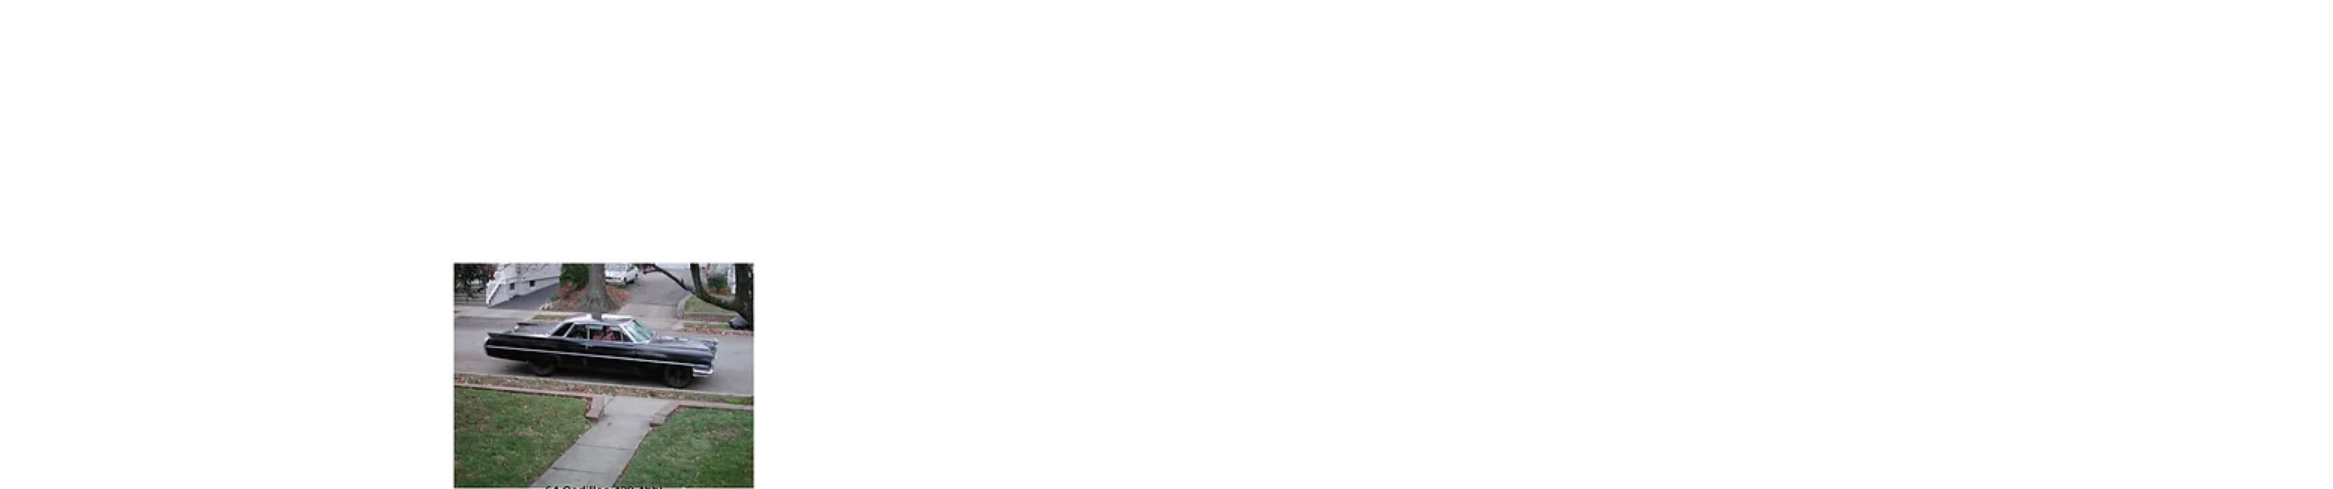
import math
import cairo

surface = cairo.ImageSurface(cairo.Format.RGB24, 2333, 489)
ctx = cairo.Context(surface)
options = cairo.FontOptions()
options.set_hint_metrics(cairo.HintMetrics.OFF)
options.set_hint_style(cairo.HintStyle.NONE)
ctx.set_font_options(options)
ctx.set_miter_limit(4)


def ink(r, g, b):
    ctx.set_source_rgb(r / 255, g / 255, b / 255)


def paste(path, x, y, w, h):
    ctx.save()
    ctx.set_source_surface(cairo.ImageSurface.create_from_png(path), x, y)
    ctx.rectangle(x, y, w, h)
    ctx.fill()
    ctx.restore()


ink(255, 255, 255)
ctx.paint()
paste("pic1.png", 449, 258, 307, 231)
surface.write_to_png("screenshot.png")
